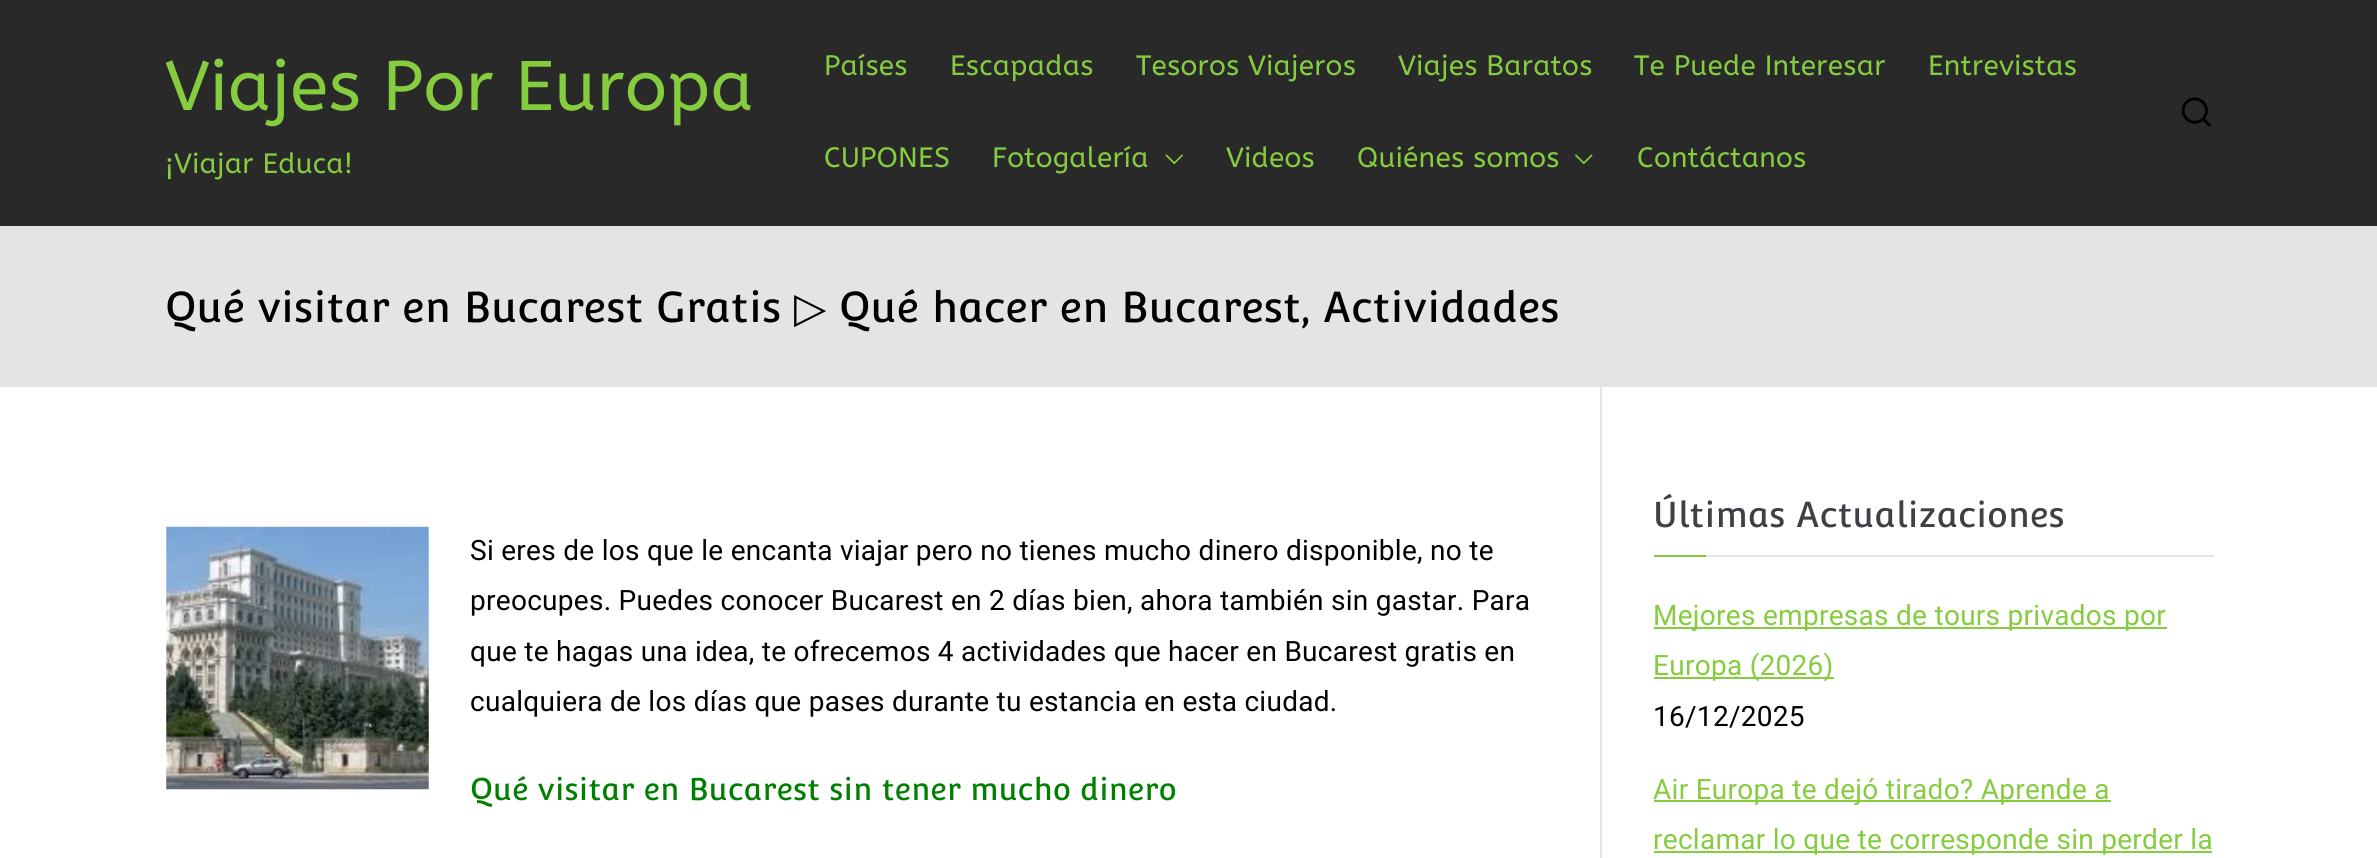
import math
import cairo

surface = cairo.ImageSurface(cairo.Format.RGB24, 2377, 858)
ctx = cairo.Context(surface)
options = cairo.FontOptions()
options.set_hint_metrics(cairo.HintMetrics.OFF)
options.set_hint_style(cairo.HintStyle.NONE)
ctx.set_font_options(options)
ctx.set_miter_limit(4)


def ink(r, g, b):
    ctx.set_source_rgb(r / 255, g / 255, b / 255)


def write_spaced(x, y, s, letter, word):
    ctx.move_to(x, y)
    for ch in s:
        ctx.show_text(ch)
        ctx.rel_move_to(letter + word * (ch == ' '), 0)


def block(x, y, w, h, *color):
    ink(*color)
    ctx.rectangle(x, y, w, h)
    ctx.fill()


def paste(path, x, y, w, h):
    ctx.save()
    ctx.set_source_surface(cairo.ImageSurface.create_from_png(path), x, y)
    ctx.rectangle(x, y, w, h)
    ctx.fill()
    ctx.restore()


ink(228, 228, 231)
ctx.paint()
block(0, 0, 2377, 226, 41, 41, 41)
ctx.select_font_face("ABeeZee")
ctx.set_font_size(70)
ink(133, 204, 63)
write_spaced(165, 110, "Viajes Por Europa", 0.28, 0)
ctx.set_font_size(28)
write_spaced(165, 173, "¡Viajar Educa!", 0.28, 0)
write_spaced(824, 75, "Países", 0.28, 0)
write_spaced(950, 75, "Escapadas", 0.28, 0)
write_spaced(1136, 75, "Tesoros Viajeros", 0.28, 0)
write_spaced(1398, 75, "Viajes Baratos", 0.28, 0)
write_spaced(1634, 75, "Te Puede Interesar", 0.28, 0)
write_spaced(1928, 75, "Entrevistas", 0.28, 0)
write_spaced(824, 167, "CUPONES", 0.28, 0)
write_spaced(992, 167, "Fotogalería", 0.28, 0)
paste("pic1.png", 1165, 154, 18, 10)
write_spaced(1226, 167, "Videos", 0.28, 0)
write_spaced(1357, 167, "Quiénes somos", 0.28, 0)
paste("pic2.png", 1575, 154, 18, 10)
write_spaced(1637, 167, "Contáctanos", 0.28, 0)
paste("pic3.png", 2181, 97, 30, 30)
ctx.select_font_face("Convergence")
ctx.set_font_size(42)
ink(0, 0, 0)
write_spaced(165, 322, "Qué visitar en Bucarest Gratis", 0.28, 0)
ctx.select_font_face("DejaVu Sans")
write_spaced(794, 322, "▷", 0.28, 0)
ctx.select_font_face("Convergence")
write_spaced(839, 322, "Qué hacer en Bucarest, Actividades", 0.28, 0)
block(0, 387, 2377, 471, 255, 255, 255)
paste("pic4.png", 166, 526, 263, 264)
ctx.select_font_face("Roboto")
ctx.set_font_size(28)
ink(0, 0, 0)
write_spaced(470, 560, "Si eres de los que le encanta viajar pero no tienes mucho dinero disponible, no te", 0.28, 0)
write_spaced(470, 610, "preocupes. Puedes conocer Bucarest en 2 días bien, ahora también sin gastar. Para", 0.28, 0)
write_spaced(470, 661, "que te hagas una idea, te ofrecemos 4 actividades que hacer en Bucarest gratis en", 0.28, 0)
write_spaced(470, 711, "cualquiera de los días que pases durante tu estancia en esta ciudad.", 0.28, 0)
ctx.select_font_face("Convergence")
ctx.set_font_size(30.6)
ink(0, 128, 0)
write_spaced(470, 800, "Qué visitar en Bucarest sin tener mucho dinero", 0.28, 0)
block(1600, 387, 2, 471, 228, 228, 231)
block(1706, 555, 508, 2, 228, 228, 231)
ctx.set_font_size(35)
ink(63, 63, 70)
write_spaced(1653, 527, "Últimas Actualizaciones", 0.28, 0)
block(1654, 555, 52, 2, 133, 204, 63)
block(1654, 627, 513, 2, 133, 204, 63)
ctx.select_font_face("Roboto")
ctx.set_font_size(28)
write_spaced(1653, 625, "Mejores empresas de tours privados por", 0.28, 0)
block(1654, 677, 180, 2, 133, 204, 63)
write_spaced(1653, 675, "Europa (2026)", 0.28, 0)
ink(0, 0, 0)
write_spaced(1653, 726, "16/12/2025", 0.28, 0)
block(1654, 800, 457, 2, 133, 204, 63)
write_spaced(1653, 799, "Air Europa te dejó tirado? Aprende a", 0.28, 0)
block(1654, 851, 558, 2, 133, 204, 63)
write_spaced(1653, 849, "reclamar lo que te corresponde sin perder la", 0.28, 0)
surface.write_to_png("screenshot.png")
